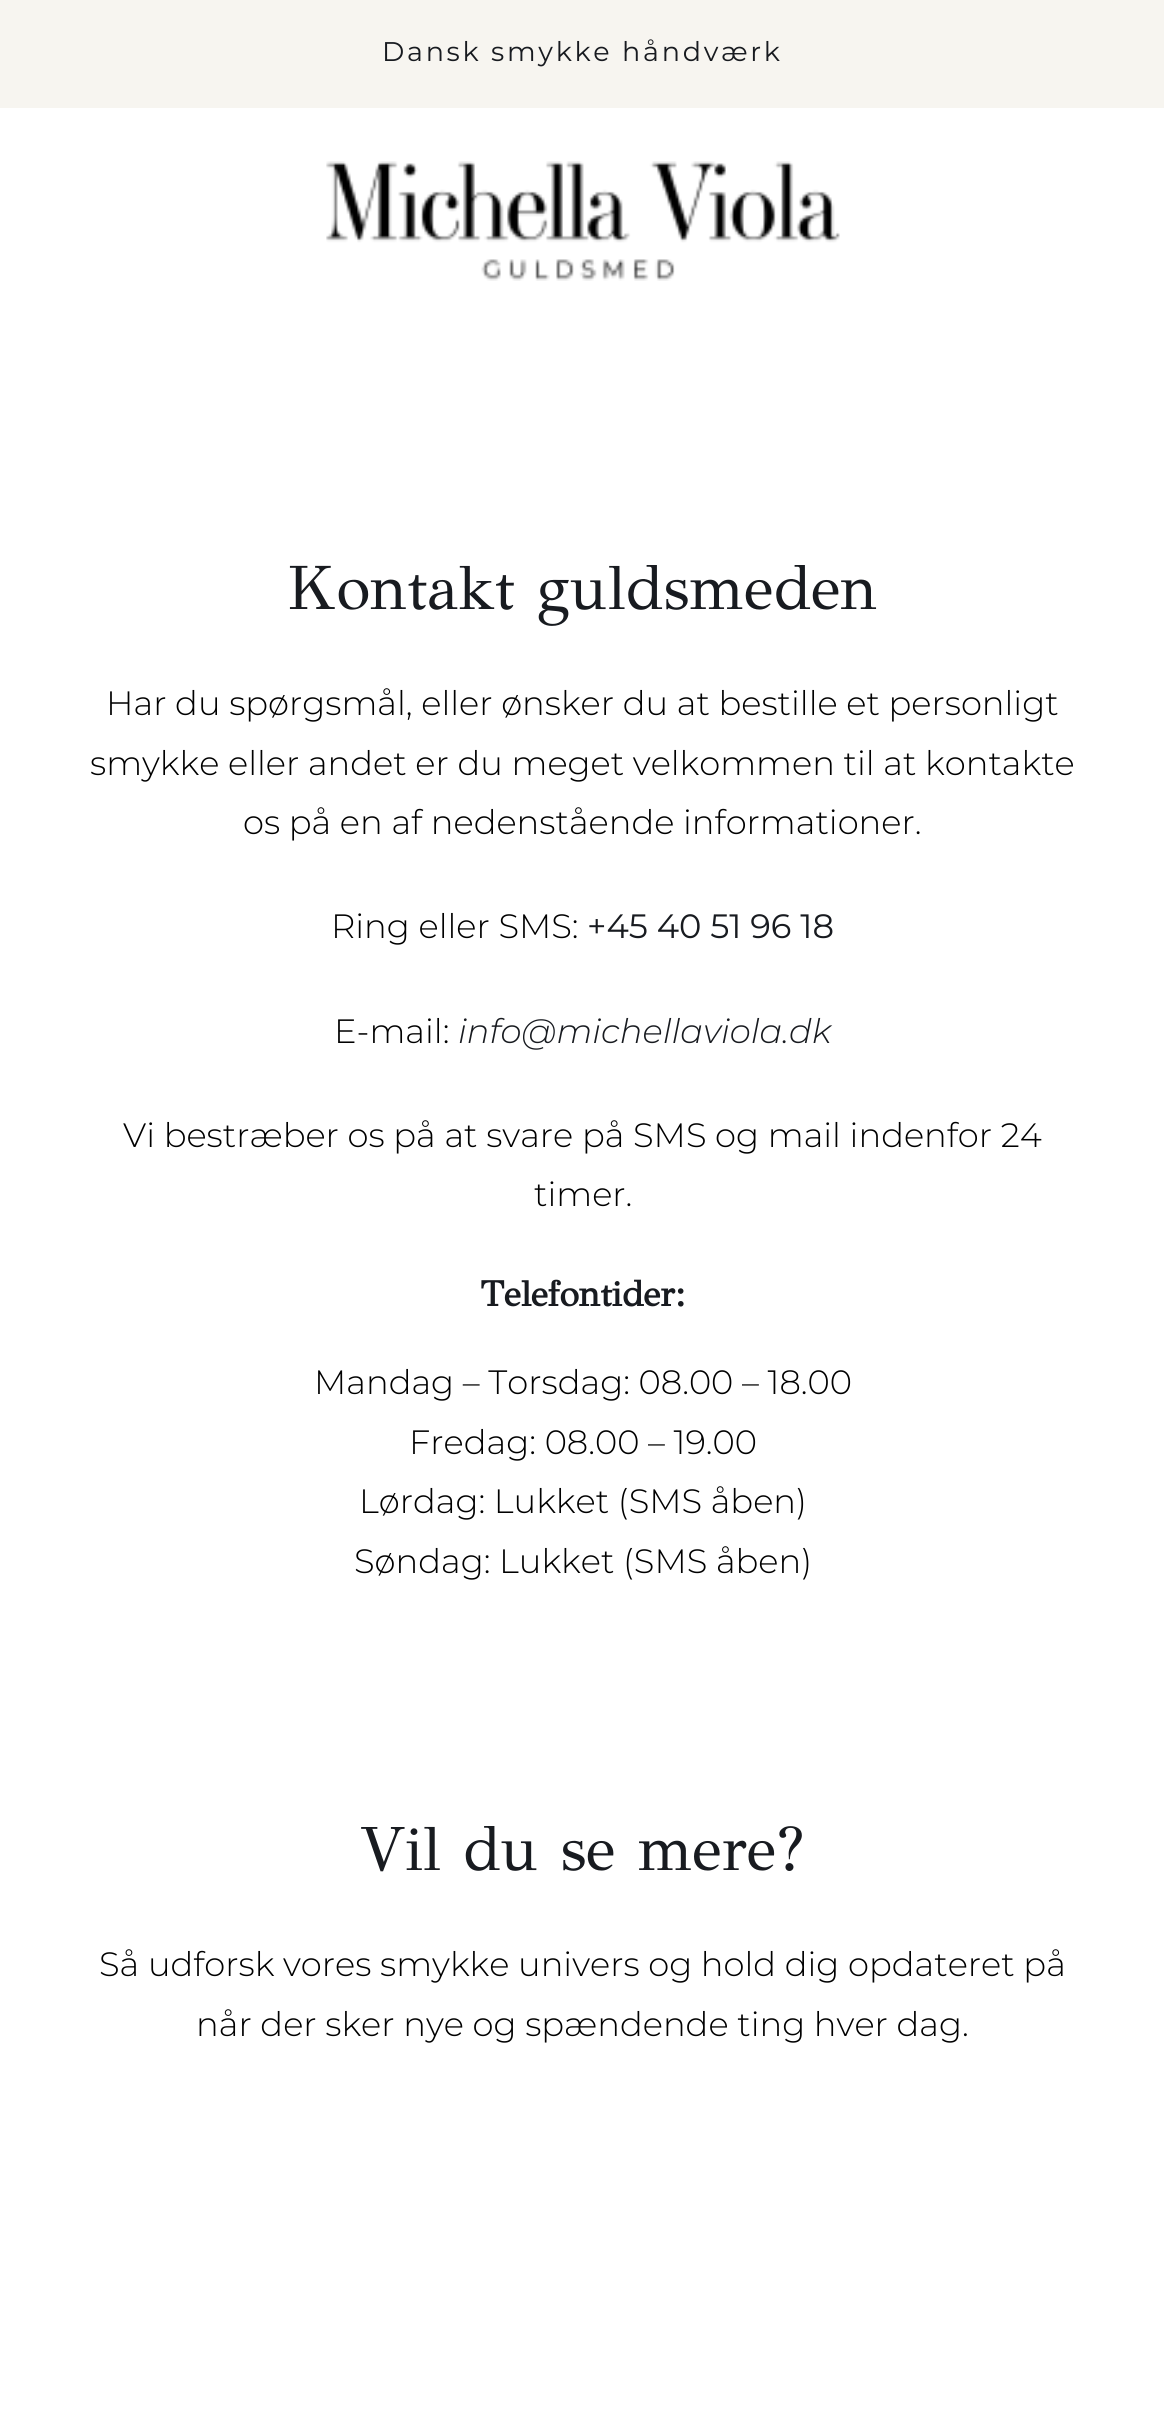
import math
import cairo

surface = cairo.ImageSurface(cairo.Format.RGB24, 1164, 2427)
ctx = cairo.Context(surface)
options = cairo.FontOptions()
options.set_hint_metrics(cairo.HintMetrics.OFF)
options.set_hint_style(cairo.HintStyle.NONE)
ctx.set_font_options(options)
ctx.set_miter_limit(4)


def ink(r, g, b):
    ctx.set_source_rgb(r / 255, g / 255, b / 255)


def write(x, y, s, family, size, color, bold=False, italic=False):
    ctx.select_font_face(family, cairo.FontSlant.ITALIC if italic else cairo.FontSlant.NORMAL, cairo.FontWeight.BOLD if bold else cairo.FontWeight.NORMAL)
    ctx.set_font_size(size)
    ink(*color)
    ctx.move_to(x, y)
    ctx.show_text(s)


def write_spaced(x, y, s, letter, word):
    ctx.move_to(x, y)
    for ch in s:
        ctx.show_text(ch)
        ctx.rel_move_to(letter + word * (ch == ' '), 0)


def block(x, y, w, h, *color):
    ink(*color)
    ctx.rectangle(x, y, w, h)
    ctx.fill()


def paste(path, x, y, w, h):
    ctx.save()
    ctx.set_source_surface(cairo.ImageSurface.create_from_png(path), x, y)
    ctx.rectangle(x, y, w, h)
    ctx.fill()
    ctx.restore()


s1 = dict(family="GFS Didot", size=62.6, color=(24, 27, 32))
s2 = dict(family="Montserrat Light", size=33.75, color=(0, 0, 0))
s3 = dict(family="Montserrat", size=33.75, color=(24, 27, 32))
s4 = dict(family="Montserrat Light", size=33.75, color=(24, 27, 32), italic=True)
s5 = dict(family="GFS Didot", size=36, color=(24, 27, 32), bold=True)

ink(255, 255, 255)
ctx.paint()
block(0, 0, 1164, 108, 247, 245, 240)
ctx.select_font_face("Montserrat")
ctx.set_font_size(27)
ink(24, 27, 32)
write_spaced(382, 61, "Dansk smykke håndværk", 2.7, 0)
paste("pic1.png", 326, 161, 514, 120)
write(288, 609, "Kontakt guldsmeden", **s1)
write(106, 715, "Har du spørgsmål, eller ønsker du at bestille et personligt", **s2)
write(90, 775, "smykke eller andet er du meget velkommen til at kontakte", **s2)
write(243, 834, "os på en af nedenstående informationer.", **s2)
write(331, 938, "Ring eller SMS:", **s2)
write(587, 938, "+45 40 51 96 18", **s3)
write(334, 1043, "E-mail:", **s2)
write(458, 1043, "info@michellaviola.dk", **s4)
write(123, 1147, "Vi bestræber os på at svare på SMS og mail indenfor 24", **s2)
write(534, 1206, "timer.", **s2)
write(480, 1306, "Telefontider:", **s5)
write(314, 1394, "Mandag – Torsdag: 08.00 – 18.00", **s2)
write(409, 1454, "Fredag: 08.00 – 19.00", **s2)
write(359, 1513, "Lørdag: Lukket (SMS åben)", **s2)
write(354, 1573, "Søndag: Lukket (SMS åben)", **s2)
write(360, 1870, "Vil du se mere?", **s1)
write(99, 1976, "Så udforsk vores smykke univers og hold dig opdateret på", **s2)
write(196, 2036, "når der sker nye og spændende ting hver dag.", **s2)
surface.write_to_png("screenshot.png")
